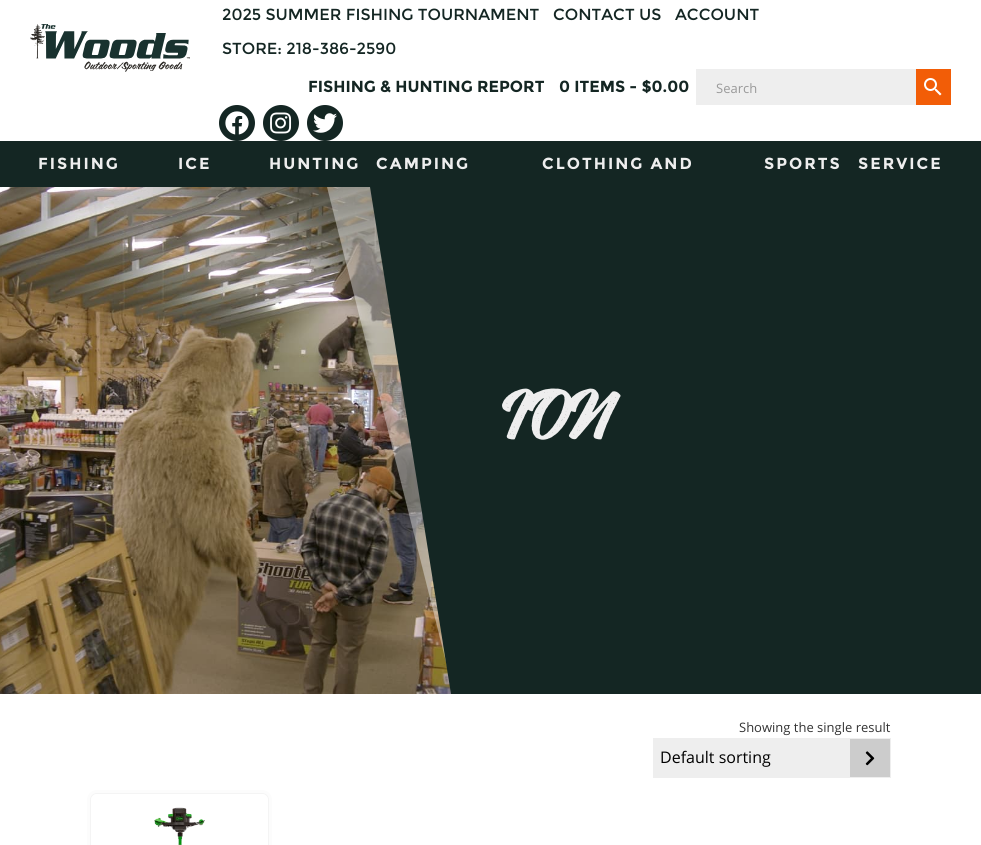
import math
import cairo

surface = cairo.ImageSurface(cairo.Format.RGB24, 981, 845)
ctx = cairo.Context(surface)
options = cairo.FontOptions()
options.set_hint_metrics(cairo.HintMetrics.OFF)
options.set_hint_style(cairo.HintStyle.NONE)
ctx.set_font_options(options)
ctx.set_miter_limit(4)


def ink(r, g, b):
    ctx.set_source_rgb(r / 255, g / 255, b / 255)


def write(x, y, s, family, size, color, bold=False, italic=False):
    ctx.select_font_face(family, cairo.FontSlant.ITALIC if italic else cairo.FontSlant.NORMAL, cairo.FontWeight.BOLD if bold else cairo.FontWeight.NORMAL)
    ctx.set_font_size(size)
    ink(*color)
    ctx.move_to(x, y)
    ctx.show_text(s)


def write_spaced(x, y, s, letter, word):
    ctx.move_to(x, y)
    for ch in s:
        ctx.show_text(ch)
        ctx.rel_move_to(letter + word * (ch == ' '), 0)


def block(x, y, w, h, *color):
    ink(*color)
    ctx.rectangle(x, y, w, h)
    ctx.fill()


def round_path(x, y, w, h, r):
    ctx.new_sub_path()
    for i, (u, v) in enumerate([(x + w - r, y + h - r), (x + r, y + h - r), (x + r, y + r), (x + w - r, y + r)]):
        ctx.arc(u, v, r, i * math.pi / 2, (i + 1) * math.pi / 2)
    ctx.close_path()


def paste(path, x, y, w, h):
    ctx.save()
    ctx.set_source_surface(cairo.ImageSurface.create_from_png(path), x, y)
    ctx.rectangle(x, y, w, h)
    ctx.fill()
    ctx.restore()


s1 = dict(family="Montserrat", size=16, color=(20, 38, 35))
s2 = dict(family="Montserrat", size=16, color=(20, 38, 35), bold=True)
s3 = dict(family="Open Sans", size=13, color=(153, 153, 153))
s4 = dict(family="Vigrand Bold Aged", size=48, color=(238, 238, 238), bold=True)
s5 = dict(family="Open Sans", size=13, color=(51, 51, 51))
s6 = dict(family="Open Sans", size=16, color=(0, 0, 0))

ink(255, 255, 255)
ctx.paint()
paste("pic1.png", 30, 24, 160, 48)
write(222, 20, "2025 SUMMER FISHING TOURNAMENT", **s1)
write(553, 20, "CONTACT US", **s1)
write(675, 20, "ACCOUNT", **s1)
write(222, 54, "STORE: 218-386-2590", **s1)
write(308, 92, "FISHING & HUNTING REPORT", **s2)
write(559, 92, "0 ITEMS - $0.00", **s2)
block(696, 69, 220, 36, 238, 238, 238)
write(716, 93, "Search", **s3)
block(916, 69, 35, 36, 242, 93, 7)
paste("pic2.png", 924, 78, 18, 18)
ink(20, 38, 35)
ctx.arc(237, 123, 18, 0, 2 * math.pi)
ctx.fill()
paste("pic3.png", 225, 111, 24, 24)
ctx.arc(281, 123, 18, 0, 2 * math.pi)
ctx.fill()
paste("pic4.png", 270, 112, 22, 22)
ctx.arc(325, 123, 18, 0, 2 * math.pi)
ctx.fill()
paste("pic5.png", 313, 113, 24, 20)
block(0, 141, 981, 46, 20, 38, 35)
ctx.select_font_face("Montserrat", cairo.FontSlant.NORMAL, cairo.FontWeight.BOLD)
ctx.set_font_size(16)
ink(238, 238, 238)
write_spaced(38, 169, "FISHING", 2, 0)
write_spaced(178, 169, "ICE", 2, 0)
write_spaced(269, 169, "HUNTING", 2, 0)
write_spaced(376, 169, "CAMPING", 2, 0)
write_spaced(542, 169, "CLOTHING AND", 2, 0)
write_spaced(764, 169, "SPORTS", 2, 0)
write_spaced(858, 169, "SERVICE", 2, 0)
paste("pic6.png", 0, 187, 451, 507)
ctx.set_source_rgba(1, 1, 1, 0.4)
ctx.new_path()
ctx.move_to(327, 187)
ctx.line_to(527, 187)
ctx.line_to(654, 694)
ctx.line_to(454, 694)
ctx.close_path()
ctx.fill()
ink(20, 38, 35)
ctx.new_path()
ctx.move_to(370, 187)
ctx.line_to(530, 187)
ctx.line_to(611, 694)
ctx.line_to(451, 694)
ctx.close_path()
ctx.fill()
block(530, 187, 451, 507, 20, 38, 35)
write(505, 437, "ION", **s4)
write(739, 732, "Showing the single result", **s5)
block(654, 739, 196, 38, 238, 238, 238)
paste("pic7.png", 850, 739, 40, 38)
ctx.rectangle(653.5, 738.5, 237, 39)
ctx.set_line_width(1)
ctx.stroke()
write(660, 763, "Default sorting", **s6)
round_path(89, 792, 181, 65, 8)
ink(252, 252, 252)
ctx.set_line_width(4)
ctx.stroke()
round_path(90.5, 793.5, 178, 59, 6.5)
ink(244, 244, 244)
ctx.set_line_width(1)
ctx.stroke()
ink(255, 255, 255)
round_path(91, 794, 177, 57, 6)
ctx.fill()
paste("pic8.png", 154, 807, 51, 38)
surface.write_to_png("screenshot.png")
